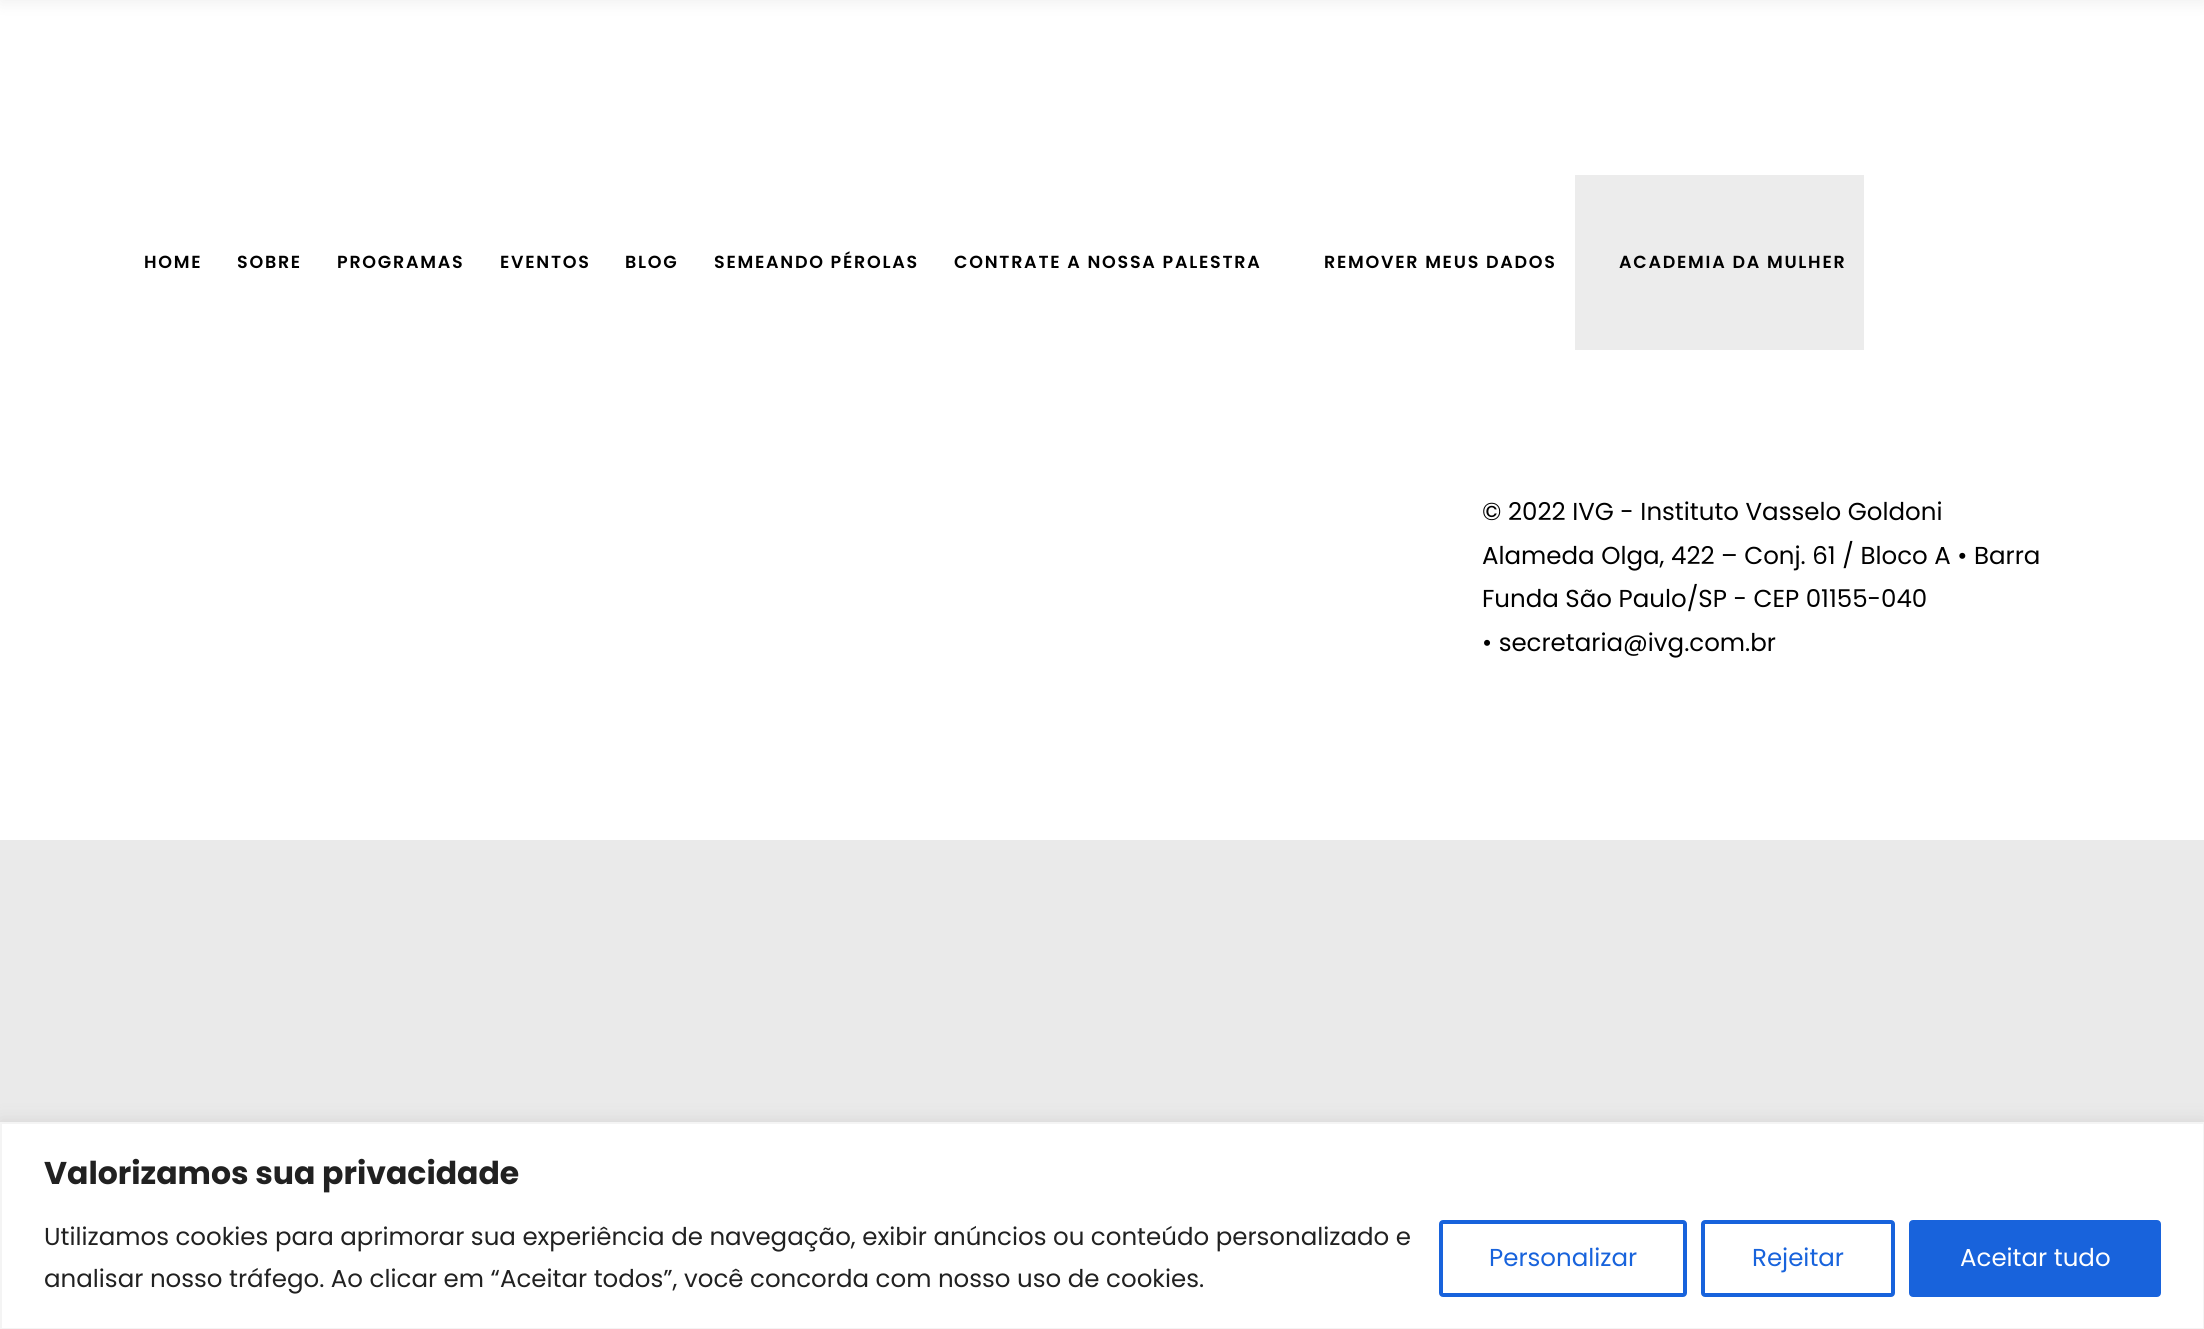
import math
import cairo

surface = cairo.ImageSurface(cairo.Format.RGB24, 2204, 1329)
ctx = cairo.Context(surface)
options = cairo.FontOptions()
options.set_hint_metrics(cairo.HintMetrics.OFF)
options.set_hint_style(cairo.HintStyle.NONE)
ctx.set_font_options(options)
ctx.set_miter_limit(4)


def ink(r, g, b):
    ctx.set_source_rgb(r / 255, g / 255, b / 255)


def write(x, y, s, family, size, color, bold=False, italic=False):
    ctx.select_font_face(family, cairo.FontSlant.ITALIC if italic else cairo.FontSlant.NORMAL, cairo.FontWeight.BOLD if bold else cairo.FontWeight.NORMAL)
    ctx.set_font_size(size)
    ink(*color)
    ctx.move_to(x, y)
    ctx.show_text(s)


def write_spaced(x, y, s, letter, word):
    ctx.move_to(x, y)
    for ch in s:
        ctx.show_text(ch)
        ctx.rel_move_to(letter + word * (ch == ' '), 0)


def block(x, y, w, h, *color):
    ink(*color)
    ctx.rectangle(x, y, w, h)
    ctx.fill()


def round_path(x, y, w, h, r):
    ctx.new_sub_path()
    for i, (u, v) in enumerate([(x + w - r, y + h - r), (x + r, y + h - r), (x + r, y + r), (x + w - r, y + r)]):
        ctx.arc(u, v, r, i * math.pi / 2, (i + 1) * math.pi / 2)
    ctx.close_path()


def blur_box(x, y, w, h, r, blur, alpha):
    ctx.push_group_with_content(cairo.Content.ALPHA)
    ctx.set_operator(cairo.Operator.SOURCE)
    for i in range(15, -16, -2):
        e = blur * i / 6
        if min(w, h) + 2 * e > 0:
            ctx.set_source_rgba(0, 0, 0, alpha * math.erfc((i - 1) / 8.5) / 2)
            round_path(x - e, y - e, w + 2 * e, h + 2 * e, max(0, min(r + e + blur * .6, min(w, h) / 2 + e)))
            ctx.fill()
    ctx.mask(ctx.pop_group())


s1 = dict(family="Poppins", size=24.5, color=(0, 0, 0))
s2 = dict(family="Poppins", size=31.5, color=(33, 33, 33), bold=True)
s3 = dict(family="Poppins", size=24.5, color=(33, 33, 33))
s4 = dict(family="Poppins", size=24.5, color=(24, 99, 220))
s5 = dict(family="Poppins", size=24.5, color=(255, 255, 255))

ink(255, 255, 255)
ctx.paint()
ink(0, 0, 0)
blur_box(0, -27, 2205, 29, 0, 9, 0.07)
ctx.select_font_face("Poppins SemiBold")
ctx.set_font_size(17.5)
ink(0, 0, 0)
write_spaced(144, 268, "HOME", 1.75, 0)
write_spaced(237, 268, "SOBRE", 1.75, 0)
write_spaced(337, 268, "PROGRAMAS", 1.75, 0)
write_spaced(500, 268, "EVENTOS", 1.75, 0)
write_spaced(625, 268, "BLOG", 1.75, 0)
write_spaced(714, 268, "SEMEANDO PÉROLAS", 1.75, 0)
write_spaced(954, 268, "CONTRATE A NOSSA PALESTRA", 1.75, 0)
write_spaced(1324, 268, "REMOVER MEUS DADOS", 1.75, 0)
block(1575, 175, 289, 175, 236, 236, 236)
ink(0, 0, 0)
write_spaced(1619, 268, "ACADEMIA DA MULHER", 1.75, 0)
write(1482, 520, "© 2022 IVG - Instituto Vasselo Goldoni", **s1)
write(1482, 564, "Alameda Olga, 422 – Conj. 61 / Bloco A • Barra", **s1)
write(1482, 607, "Funda São Paulo/SP - CEP 01155-040", **s1)
write(1482, 651, "• secretaria@ivg.com.br", **s1)
block(0, 840, 2204, 282, 234, 234, 234)
ink(172, 171, 171)
blur_box(0, 1120, 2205, 208, 0, 9, 0.3)
ink(255, 255, 255)
ctx.rectangle(1, 1123, 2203, 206)
ctx.fill_preserve()
ink(244, 244, 244)
ctx.stroke()
write(44, 1184, "Valorizamos sua privacidade", **s2)
write(44, 1245, "Utilizamos cookies para aprimorar sua experiência de navegação, exibir anúncios ou conteúdo personalizado e", **s3)
write(44, 1287, "analisar nosso tráfego. Ao clicar em “Aceitar todos”, você concorda com nosso uso de cookies.", **s3)
round_path(1441, 1222, 244, 73, 2)
ink(24, 99, 220)
ctx.set_line_width(4)
ctx.stroke()
write(1489, 1266, "Personalizar", **s4)
round_path(1703, 1222, 190, 73, 2)
ctx.stroke()
write(1752, 1266, "Rejeitar", **s4)
round_path(1911, 1222, 248, 73, 2)
ctx.fill_preserve()
ctx.stroke()
write(1960, 1266, "Aceitar tudo", **s5)
surface.write_to_png("screenshot.png")
